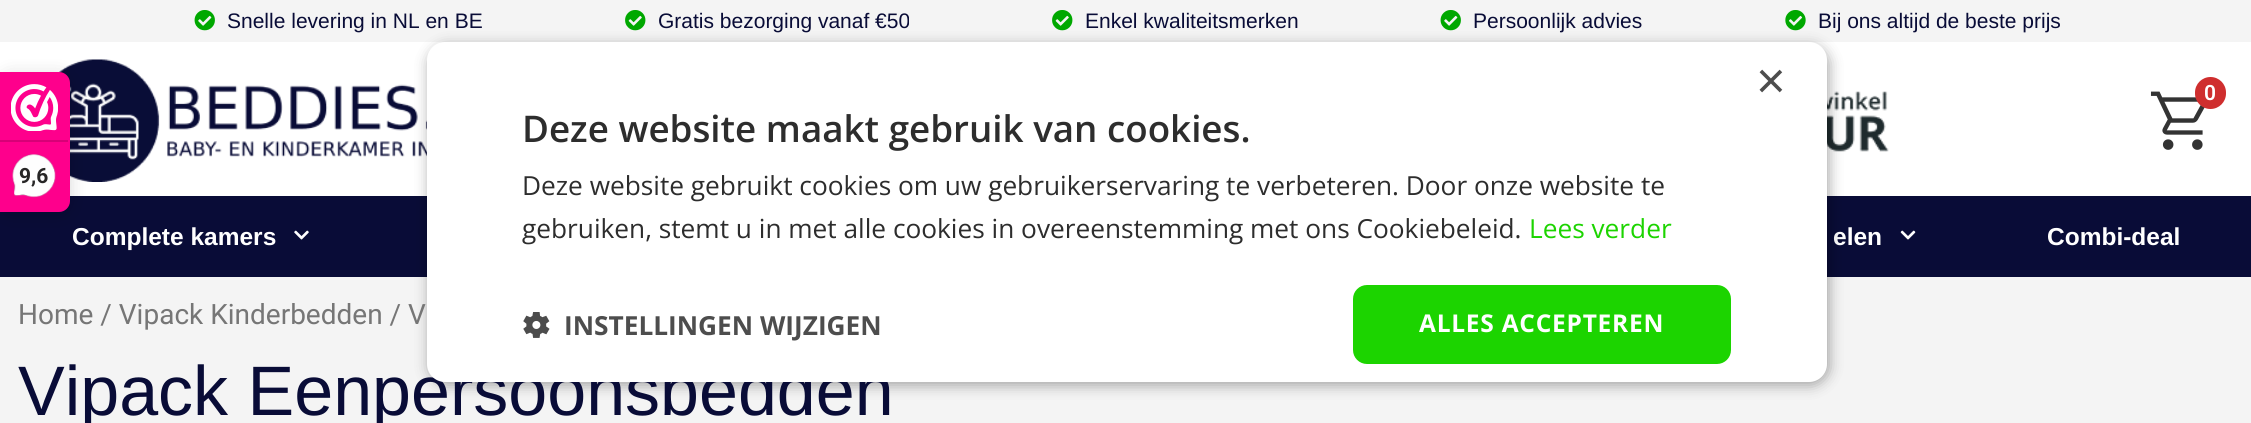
import math
import cairo

surface = cairo.ImageSurface(cairo.Format.RGB24, 2251, 423)
ctx = cairo.Context(surface)
options = cairo.FontOptions()
options.set_hint_metrics(cairo.HintMetrics.OFF)
options.set_hint_style(cairo.HintStyle.NONE)
ctx.set_font_options(options)
ctx.set_miter_limit(4)


def ink(r, g, b):
    ctx.set_source_rgb(r / 255, g / 255, b / 255)


def write(x, y, s, family, size, color, bold=False, italic=False):
    ctx.select_font_face(family, cairo.FontSlant.ITALIC if italic else cairo.FontSlant.NORMAL, cairo.FontWeight.BOLD if bold else cairo.FontWeight.NORMAL)
    ctx.set_font_size(size)
    ink(*color)
    ctx.move_to(x, y)
    ctx.show_text(s)


def write_spaced(x, y, s, letter, word):
    ctx.move_to(x, y)
    for ch in s:
        ctx.show_text(ch)
        ctx.rel_move_to(letter + word * (ch == ' '), 0)


def block(x, y, w, h, *color):
    ink(*color)
    ctx.rectangle(x, y, w, h)
    ctx.fill()


def round_path(x, y, w, h, r):
    ctx.new_sub_path()
    for i, (u, v) in enumerate([(x + w - r, y + h - r), (x + r, y + h - r), (x + r, y + r), (x + w - r, y + r)]):
        ctx.arc(u, v, r, i * math.pi / 2, (i + 1) * math.pi / 2)
    ctx.close_path()


def blur_box(x, y, w, h, r, blur, alpha):
    ctx.push_group_with_content(cairo.Content.ALPHA)
    ctx.set_operator(cairo.Operator.SOURCE)
    for i in range(15, -16, -2):
        e = blur * i / 6
        if min(w, h) + 2 * e > 0:
            ctx.set_source_rgba(0, 0, 0, alpha * math.erfc((i - 1) / 8.5) / 2)
            round_path(x - e, y - e, w + 2 * e, h + 2 * e, max(0, min(r + e + blur * .6, min(w, h) / 2 + e)))
            ctx.fill()
    ctx.mask(ctx.pop_group())


def paste(path, x, y, w, h):
    ctx.save()
    ctx.set_source_surface(cairo.ImageSurface.create_from_png(path), x, y)
    ctx.rectangle(x, y, w, h)
    ctx.fill()
    ctx.restore()


s1 = dict(family="Liberation Sans", size=21, color=(9, 12, 55))
s2 = dict(family="Roboto SemiBold", size=21, color=(255, 255, 255))
s3 = dict(family="Liberation Sans", size=24.5, color=(255, 255, 255), bold=True)
s4 = dict(family="Roboto", size=21, color=(39, 38, 38), bold=True)
s5 = dict(family="Liberation Sans", size=70, color=(9, 12, 55))
s6 = dict(family="Liberation Sans", size=51, color=(77, 77, 77))
s7 = dict(family="Open Sans SemiBold", size=36.75, color=(45, 45, 45))
s8 = dict(family="Open Sans", size=26.25, color=(45, 45, 45))
s9 = dict(family="Open Sans", size=26.25, color=(28, 212, 0))
s10 = dict(family="Open Sans", size=26.25, color=(77, 77, 77), bold=True)
s11 = dict(family="Roboto", size=28, color=(118, 118, 118))

ink(255, 255, 255)
ctx.paint()
block(0, 0, 2251, 42, 244, 244, 244)
paste("pic1.png", 194, 10, 21, 21)
write(227, 28, "Snelle levering in NL en BE", **s1)
paste("pic2.png", 625, 10, 21, 21)
write(658, 28, "Gratis bezorging vanaf €50", **s1)
paste("pic2.png", 1052, 10, 21, 21)
write(1085, 28, "Enkel kwaliteitsmerken", **s1)
paste("pic1.png", 1440, 10, 21, 21)
write(1473, 28, "Persoonlijk advies", **s1)
paste("pic3.png", 1785, 10, 21, 21)
write(1818, 28, "Bij ons altijd de beste prijs", **s1)
paste("pic4.png", 59, 59, 368, 123)
paste("pic5.png", 1827, 91, 62, 61)
paste("pic6.png", 2150, 91, 55, 59)
ink(207, 46, 46)
round_path(2195, 77, 31, 32, 15.5)
ctx.fill()
write(2204, 100, "0", **s2)
block(0, 196, 2251, 81, 9, 12, 55)
write(72, 245, "Complete kamers", **s3)
paste("pic7.png", 294, 230, 15, 10)
write(1833, 245, "elen", **s3)
paste("pic8.png", 1900, 230, 16, 10)
write(2047, 245, "Combi-deal", **s3)
ink(0, 0, 0)
blur_box(0, 75, 70, 140, 11, 9, 0.15)
ink(254, 0, 140)
ctx.new_path()
ctx.move_to(0, 72)
ctx.line_to(59, 72)
ctx.curve_to(65, 72, 70, 77, 70, 83)
ctx.line_to(70, 201)
ctx.curve_to(70, 207, 65, 212, 59, 212)
ctx.line_to(0, 212)
ctx.close_path()
ctx.fill()
paste("pic9.png", 11, 84, 47, 47)
block(0, 140, 68, 2, 216, 0, 119)
paste("pic10.png", 12, 154, 44, 44)
write(19, 183, "9,6", **s4)
block(0, 277, 2251, 146, 244, 244, 244)
ink(0, 0, 0)
blur_box(429, 46, 1400, 339, 18, 7, 0.35)
write(18, 415, "Vipack Eenpersoonsbedden", **s5)
ink(255, 255, 255)
round_path(427, 42, 1400, 340, 18)
ctx.fill()
write(1756, 98, "×", **s6)
write(522, 142, "Deze website maakt gebruik van cookies.", **s7)
write(522, 195, "Deze website gebruikt cookies om uw gebruikerservaring te verbeteren. Door onze website te", **s8)
write(522, 238, "gebruiken, stemt u in met alle cookies in overeenstemming met ons Cookiebeleid.", **s8)
write(1529, 238, "Lees verder", **s9)
paste("pic11.png", 523, 312, 27, 26)
write(564, 335, "INSTELLINGEN WIJZIGEN", **s10)
ink(28, 212, 0)
round_path(1353, 285, 378, 79, 14)
ctx.fill()
ctx.set_font_size(24.5)
ink(255, 255, 255)
write_spaced(1419, 332, "ALLES ACCEPTEREN", 0.75, 0)
write(18, 324, "Home / Vipack Kinderbedden / V", **s11)
surface.write_to_png("screenshot.png")
